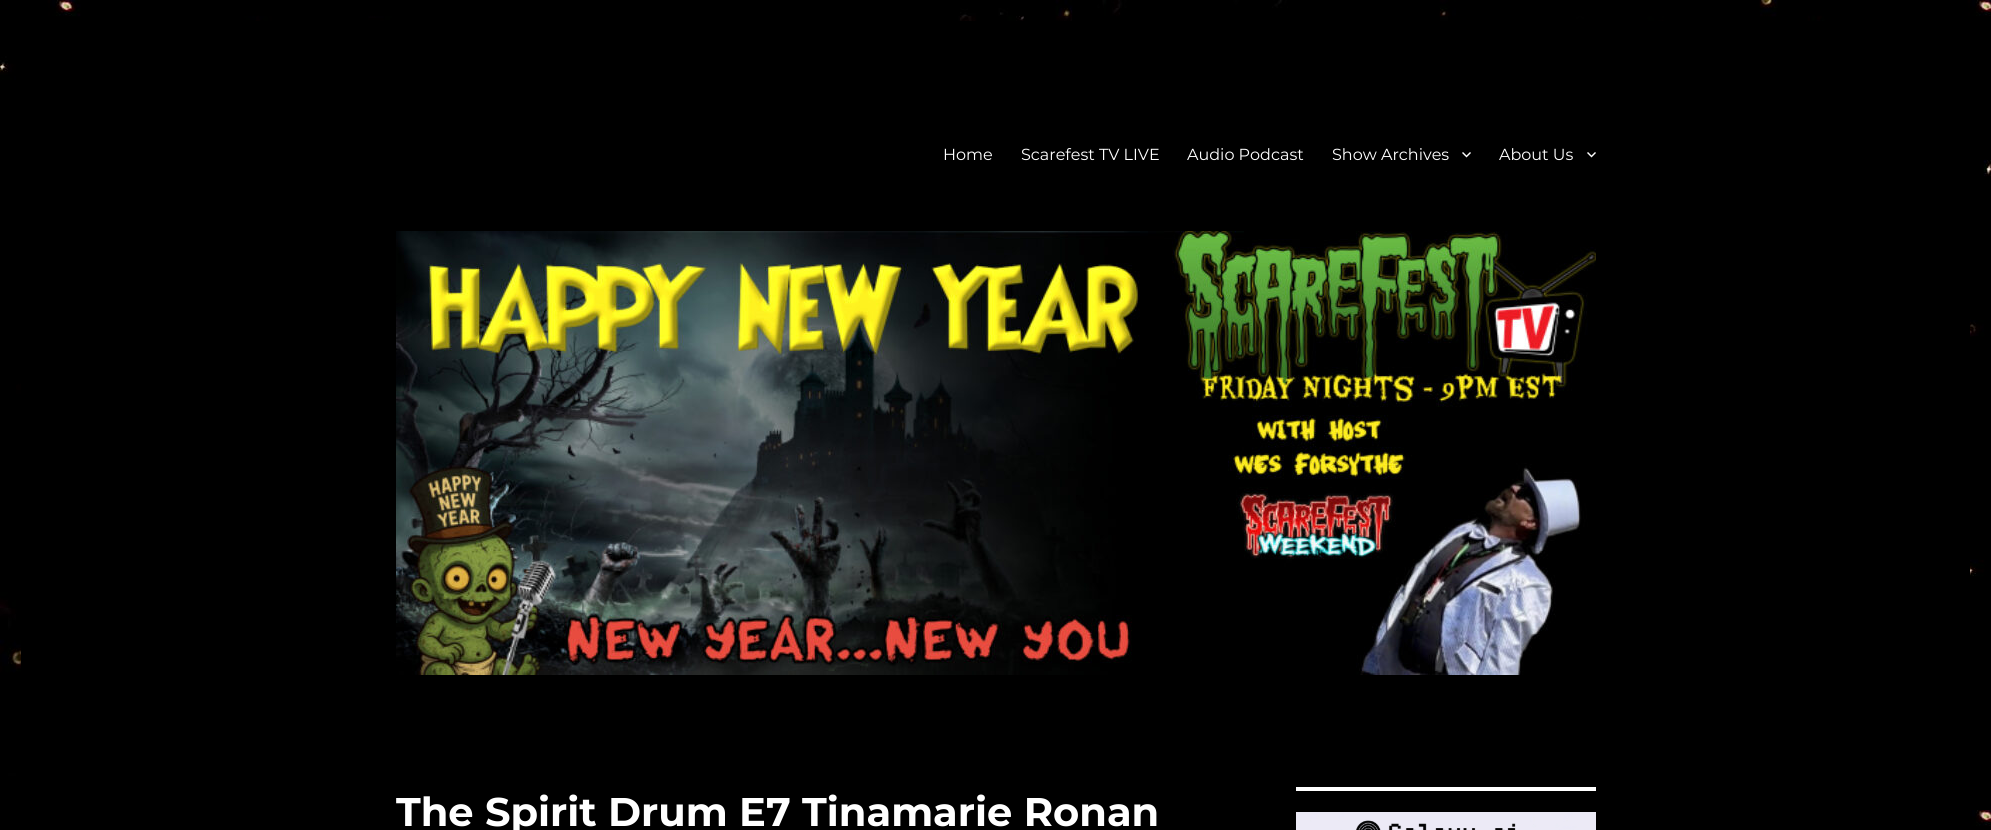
import math
import cairo

surface = cairo.ImageSurface(cairo.Format.RGB24, 1991, 830)
ctx = cairo.Context(surface)
options = cairo.FontOptions()
options.set_hint_metrics(cairo.HintMetrics.OFF)
options.set_hint_style(cairo.HintStyle.NONE)
ctx.set_font_options(options)
ctx.set_miter_limit(4)


def ink(r, g, b):
    ctx.set_source_rgb(r / 255, g / 255, b / 255)


def write(x, y, s, family, size, color, bold=False, italic=False):
    ctx.select_font_face(family, cairo.FontSlant.ITALIC if italic else cairo.FontSlant.NORMAL, cairo.FontWeight.BOLD if bold else cairo.FontWeight.NORMAL)
    ctx.set_font_size(size)
    ink(*color)
    ctx.move_to(x, y)
    ctx.show_text(s)


def block(x, y, w, h, *color):
    ink(*color)
    ctx.rectangle(x, y, w, h)
    ctx.fill()


def paste(path, x, y, w, h):
    ctx.save()
    ctx.set_source_surface(cairo.ImageSurface.create_from_png(path), x, y)
    ctx.rectangle(x, y, w, h)
    ctx.fill()
    ctx.restore()


s1 = dict(family="Montserrat", size=16, color=(255, 255, 255))
s2 = dict(family="Montserrat", size=40, color=(255, 255, 255), bold=True)

ink(255, 255, 255)
ctx.paint()
paste("pic1.png", 0, 0, 1991, 830)
block(21, 21, 1949, 809, 0, 0, 0)
write(943, 160, "Home", **s1)
write(1021, 160, "Scarefest TV LIVE", **s1)
write(1187, 160, "Audio Podcast", **s1)
write(1332, 160, "Show Archives", **s1)
paste("pic2.png", 1462, 152, 9, 6)
write(1499, 160, "About Us", **s1)
paste("pic2.png", 1587, 152, 9, 6)
paste("pic3.png", 396, 231, 1200, 444)
write(396, 826, "The Spirit Drum E7 Tinamarie Ronan", **s2)
block(1296, 787, 300, 4, 255, 255, 255)
paste("pic4.png", 1296, 812, 300, 18)
surface.write_to_png("screenshot.png")
